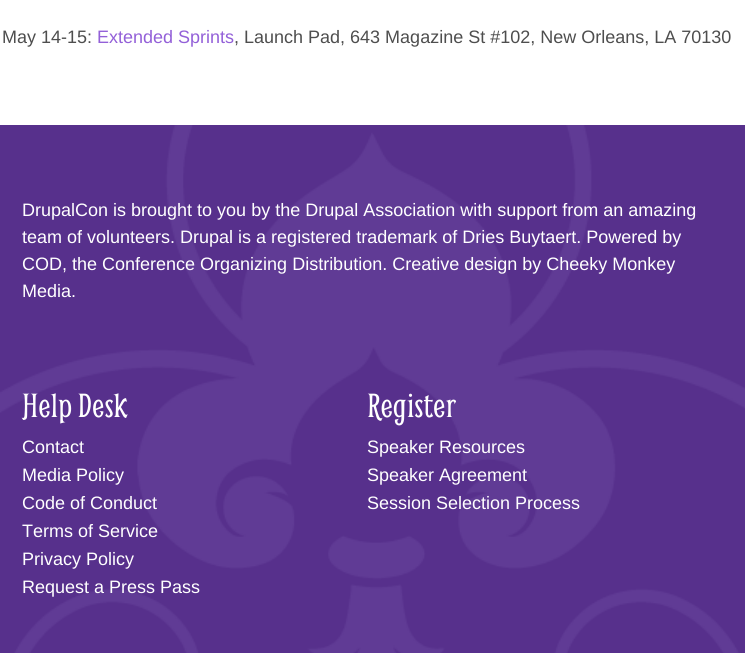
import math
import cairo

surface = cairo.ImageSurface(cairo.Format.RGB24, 745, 653)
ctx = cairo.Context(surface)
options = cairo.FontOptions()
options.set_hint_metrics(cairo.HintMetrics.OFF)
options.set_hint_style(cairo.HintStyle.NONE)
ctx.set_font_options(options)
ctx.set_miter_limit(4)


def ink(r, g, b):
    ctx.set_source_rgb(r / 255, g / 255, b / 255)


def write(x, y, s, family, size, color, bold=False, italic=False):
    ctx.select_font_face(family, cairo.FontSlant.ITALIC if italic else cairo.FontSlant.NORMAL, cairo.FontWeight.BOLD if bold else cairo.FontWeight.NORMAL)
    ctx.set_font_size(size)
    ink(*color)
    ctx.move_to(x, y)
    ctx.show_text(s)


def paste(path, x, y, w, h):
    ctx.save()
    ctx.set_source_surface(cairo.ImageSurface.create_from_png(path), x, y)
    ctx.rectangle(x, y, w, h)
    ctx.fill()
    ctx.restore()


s1 = dict(family="Liberation Sans", size=18, color=(78, 78, 78))
s2 = dict(family="Liberation Sans", size=18, color=(147, 96, 216))
s3 = dict(family="Liberation Sans", size=18, color=(255, 255, 255))
s4 = dict(family="Smythe", size=36, color=(255, 255, 255))

ink(255, 255, 255)
ctx.paint()
write(2, 43, "May 14-15:", **s1)
write(97, 43, "Extended Sprints", **s2)
write(234, 43, ", Launch Pad, 643 Magazine St #102, New Orleans, LA 70130", **s1)
paste("pic1.png", 0, 125, 745, 528)
write(22, 216, "DrupalCon is brought to you by the Drupal Association with support from an amazing", **s3)
write(22, 243, "team of volunteers. Drupal is a registered trademark of Dries Buytaert. Powered by", **s3)
write(22, 270, "COD, the Conference Organizing Distribution. Creative design by Cheeky Monkey", **s3)
write(22, 297, "Media.", **s3)
write(22, 417, "Help Desk", **s4)
write(22, 453, "Contact", **s3)
write(22, 481, "Media Policy", **s3)
write(22, 509, "Code of Conduct", **s3)
write(22, 537, "Terms of Service", **s3)
write(22, 565, "Privacy Policy", **s3)
write(22, 593, "Request a Press Pass", **s3)
write(367, 417, "Register", **s4)
write(367, 453, "Speaker Resources", **s3)
write(367, 481, "Speaker Agreement", **s3)
write(367, 509, "Session Selection Process", **s3)
surface.write_to_png("screenshot.png")
